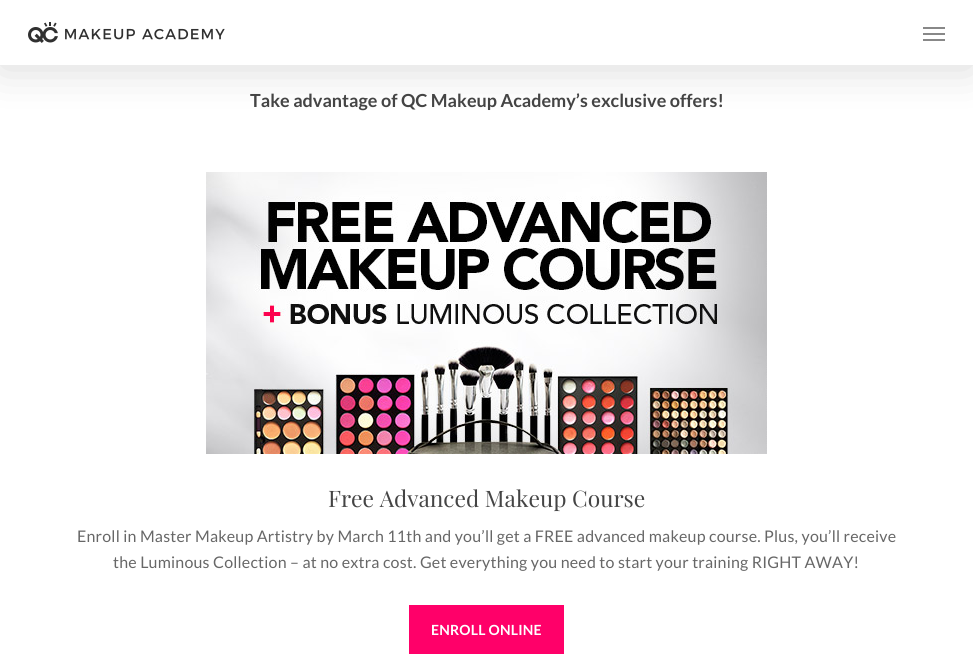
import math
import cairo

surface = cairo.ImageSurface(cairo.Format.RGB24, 973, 654)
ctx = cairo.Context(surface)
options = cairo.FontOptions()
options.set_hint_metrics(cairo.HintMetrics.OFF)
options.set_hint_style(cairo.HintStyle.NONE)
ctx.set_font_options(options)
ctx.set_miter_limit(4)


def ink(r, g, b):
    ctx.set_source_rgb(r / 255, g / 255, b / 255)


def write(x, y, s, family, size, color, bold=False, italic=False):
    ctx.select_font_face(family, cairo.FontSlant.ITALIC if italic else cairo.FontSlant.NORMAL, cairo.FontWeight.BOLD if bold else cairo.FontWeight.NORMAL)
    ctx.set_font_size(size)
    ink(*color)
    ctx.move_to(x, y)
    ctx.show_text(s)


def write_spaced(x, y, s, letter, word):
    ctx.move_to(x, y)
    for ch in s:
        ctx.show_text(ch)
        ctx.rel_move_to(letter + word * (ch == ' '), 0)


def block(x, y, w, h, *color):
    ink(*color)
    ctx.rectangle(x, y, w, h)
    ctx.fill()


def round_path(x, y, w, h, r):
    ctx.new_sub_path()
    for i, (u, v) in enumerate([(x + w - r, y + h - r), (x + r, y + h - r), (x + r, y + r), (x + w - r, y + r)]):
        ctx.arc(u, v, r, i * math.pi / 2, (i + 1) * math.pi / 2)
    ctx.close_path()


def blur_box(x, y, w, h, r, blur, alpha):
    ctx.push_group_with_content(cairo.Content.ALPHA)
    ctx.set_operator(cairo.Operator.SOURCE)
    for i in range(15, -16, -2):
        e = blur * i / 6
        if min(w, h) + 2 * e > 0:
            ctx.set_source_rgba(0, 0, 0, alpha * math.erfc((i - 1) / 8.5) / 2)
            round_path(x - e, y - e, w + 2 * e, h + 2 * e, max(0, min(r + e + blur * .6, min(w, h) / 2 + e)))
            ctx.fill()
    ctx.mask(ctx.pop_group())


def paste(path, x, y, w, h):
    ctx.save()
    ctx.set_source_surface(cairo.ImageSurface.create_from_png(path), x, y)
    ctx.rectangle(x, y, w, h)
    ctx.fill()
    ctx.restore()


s1 = dict(family="Lato", size=18, color=(68, 68, 68), bold=True)
s2 = dict(family="Playfair Display", size=22.75, color=(68, 68, 68))

ink(255, 255, 255)
ctx.paint()
ink(0, 0, 0)
blur_box(0, -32, 973, 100, 0, 22.5, 0.15)
block(0, 0, 973, 65, 255, 255, 255)
paste("pic1.png", 28, 22, 197, 21)
block(923, 27, 22, 2, 136, 136, 136)
block(923, 39, 22, 2, 136, 136, 136)
block(923, 33, 22, 2, 136, 136, 136)
write(250, 107, "Take advantage of QC Makeup Academy’s exclusive offers!", **s1)
paste("pic2.png", 206, 172, 561, 282)
write(328, 507, "Free Advanced Makeup Course", **s2)
ctx.select_font_face("Lato")
ctx.set_font_size(16)
ink(103, 103, 103)
write_spaced(77, 542, "Enroll in Master Makeup Artistry by March 11th and you’ll get a FREE advanced makeup course. Plus, you’ll receive", 0.2, 0)
write_spaced(113, 568, "the Luminous Collection – at no extra cost. Get everything you need to start your training RIGHT AWAY!", 0.2, 0)
block(409, 605, 155, 49, 255, 0, 105)
ctx.select_font_face("Lato", cairo.FontSlant.NORMAL, cairo.FontWeight.BOLD)
ctx.set_font_size(14)
ink(255, 255, 255)
write_spaced(431, 635, "ENROLL ONLINE", 0.2, 0)
surface.write_to_png("screenshot.png")
